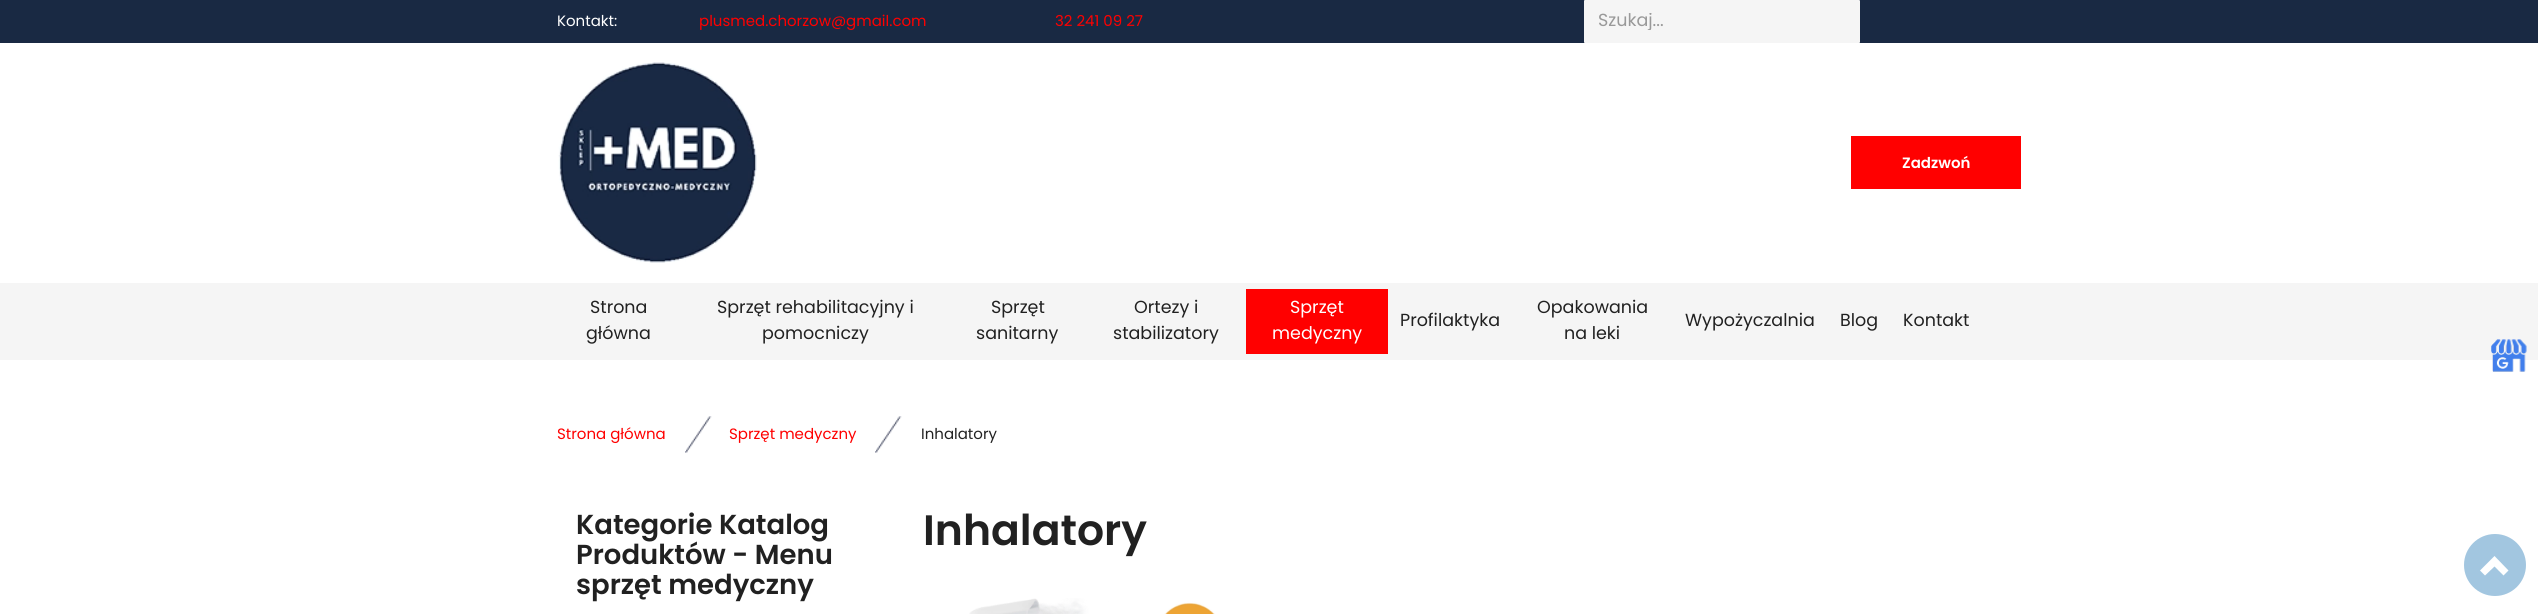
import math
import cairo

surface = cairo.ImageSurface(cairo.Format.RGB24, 2538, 614)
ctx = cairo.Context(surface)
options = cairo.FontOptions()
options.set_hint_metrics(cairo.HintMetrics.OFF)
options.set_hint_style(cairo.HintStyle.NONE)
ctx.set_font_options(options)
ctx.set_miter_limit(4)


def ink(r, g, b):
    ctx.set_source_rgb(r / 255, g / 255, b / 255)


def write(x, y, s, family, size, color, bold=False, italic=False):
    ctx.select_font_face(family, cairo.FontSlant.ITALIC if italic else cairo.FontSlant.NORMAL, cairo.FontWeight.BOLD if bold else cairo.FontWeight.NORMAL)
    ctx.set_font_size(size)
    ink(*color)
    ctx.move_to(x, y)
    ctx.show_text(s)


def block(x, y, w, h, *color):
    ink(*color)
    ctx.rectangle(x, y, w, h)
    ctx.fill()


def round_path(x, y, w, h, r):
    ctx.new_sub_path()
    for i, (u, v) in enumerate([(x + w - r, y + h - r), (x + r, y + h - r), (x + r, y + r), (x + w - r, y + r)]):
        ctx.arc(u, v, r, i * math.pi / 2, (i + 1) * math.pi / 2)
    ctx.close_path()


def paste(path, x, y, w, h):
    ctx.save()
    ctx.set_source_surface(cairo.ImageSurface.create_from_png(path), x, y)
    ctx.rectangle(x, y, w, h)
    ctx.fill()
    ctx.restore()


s1 = dict(family="Poppins", size=15, color=(255, 255, 255))
s2 = dict(family="Poppins", size=15, color=(255, 0, 0))
s3 = dict(family="Poppins", size=17.5, color=(153, 153, 153))
s4 = dict(family="Poppins SemiBold", size=15, color=(255, 255, 255))
s5 = dict(family="Poppins", size=17.5, color=(33, 33, 33))
s6 = dict(family="Poppins", size=17.5, color=(255, 255, 255))
s7 = dict(family="Poppins", size=15, color=(33, 33, 33))
s8 = dict(family="Poppins SemiBold", size=27.5, color=(33, 33, 33))
s9 = dict(family="Poppins SemiBold", size=42.5, color=(33, 33, 33))

ink(255, 255, 255)
ctx.paint()
block(0, 0, 2538, 43, 25, 41, 67)
write(557, 26, "Kontakt:", **s1)
write(699, 26, "plusmed.chorzow@gmail.com", **s2)
write(1055, 26, "32 241 09 27", **s2)
ink(245, 245, 245)
round_path(1584.5, 0.5, 275, 42, 0.5)
ctx.fill_preserve()
ctx.set_line_width(1)
ctx.stroke()
ctx.save()
ctx.rectangle(1598, 13, 248, 17)
ctx.clip()
write(1598, 26, "Szukaj...", **s3)
ctx.restore()
paste("pic1.png", 558, 62, 199, 201)
block(1851, 136, 170, 53, 255, 0, 0)
write(1902, 168, "Zadzwoń", **s4)
block(0, 283, 2538, 77, 245, 245, 245)
write(590, 313, "Strona", **s5)
write(586, 339, "główna", **s5)
write(717, 313, "Sprzęt rehabilitacyjny i", **s5)
write(762, 339, "pomocniczy", **s5)
write(991, 313, "Sprzęt", **s5)
write(976, 339, "sanitarny", **s5)
write(1134, 313, "Ortezy i", **s5)
write(1113, 339, "stabilizatory", **s5)
block(1246, 289, 142, 65, 255, 0, 0)
write(1290, 313, "Sprzęt", **s6)
write(1272, 339, "medyczny", **s6)
write(1400, 326, "Profilaktyka", **s5)
write(1537, 313, "Opakowania", **s5)
write(1564, 339, "na leki", **s5)
write(1685, 326, "Wypożyczalnia", **s5)
write(1840, 326, "Blog", **s5)
write(1903, 326, "Kontakt", **s5)
write(557, 439, "Strona główna", **s2)
paste("pic2.png", 685, 416, 27, 37)
write(729, 439, "Sprzęt medyczny", **s2)
paste("pic3.png", 875, 416, 27, 37)
write(921, 439, "Inhalatory", **s7)
write(576, 534, "Kategorie Katalog", **s8)
write(576, 564, "Produktów - Menu", **s8)
write(576, 594, "sprzęt medyczny", **s8)
write(923, 545, "Inhalatory", **s9)
paste("pic4.png", 969, 598, 246, 16)
paste("pic5.png", 2491, 339, 36, 33)
ink(162, 198, 224)
ctx.arc(2495, 565, 31, 0, 2 * math.pi)
ctx.fill()
ink(255, 255, 255)
ctx.new_path()
ctx.move_to(2508.5, 570.5)
ctx.line_to(2503.5, 575.5)
ctx.line_to(2494.5, 566.5)
ctx.line_to(2485, 575.5)
ctx.line_to(2480, 570.5)
ctx.line_to(2494.5, 556)
ctx.close_path()
ctx.fill()
surface.write_to_png("screenshot.png")
